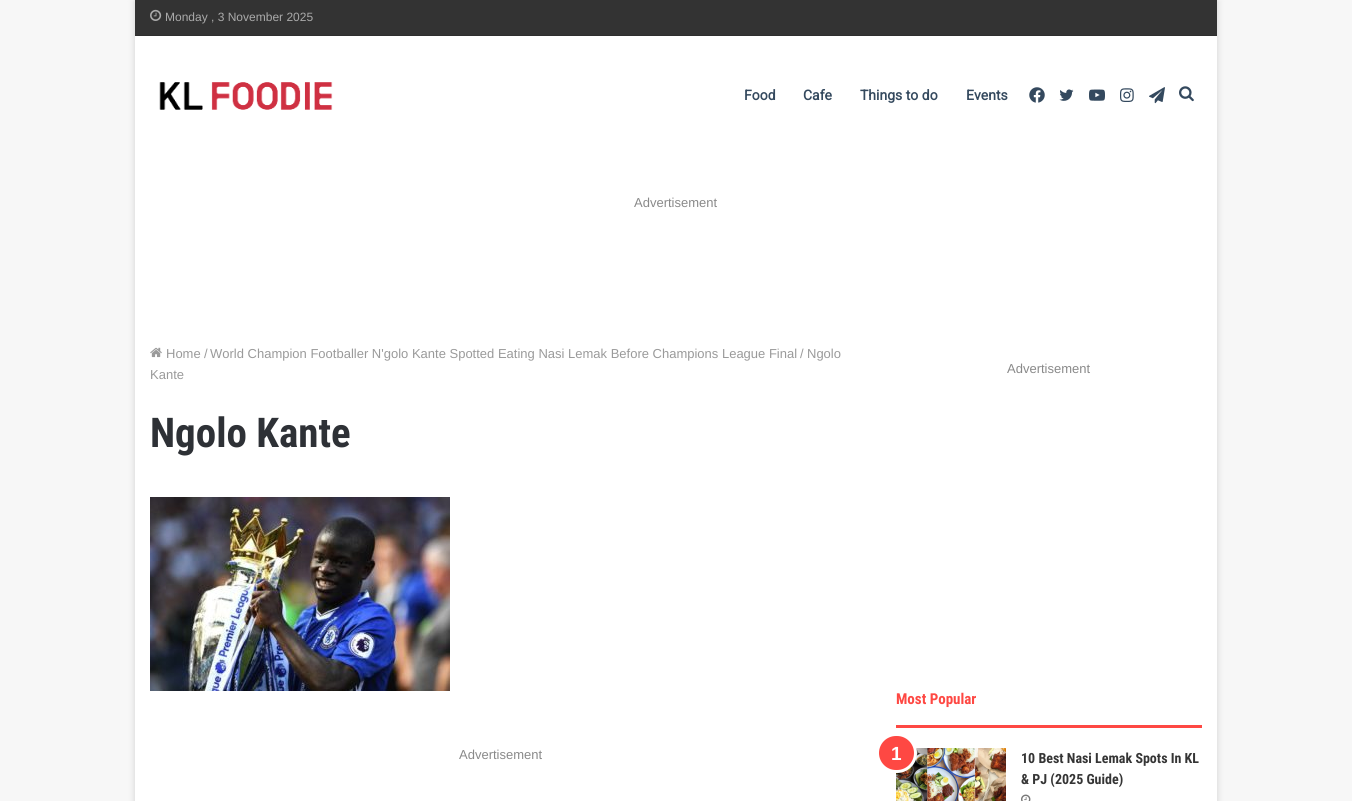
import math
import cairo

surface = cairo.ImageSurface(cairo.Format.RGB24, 1352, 801)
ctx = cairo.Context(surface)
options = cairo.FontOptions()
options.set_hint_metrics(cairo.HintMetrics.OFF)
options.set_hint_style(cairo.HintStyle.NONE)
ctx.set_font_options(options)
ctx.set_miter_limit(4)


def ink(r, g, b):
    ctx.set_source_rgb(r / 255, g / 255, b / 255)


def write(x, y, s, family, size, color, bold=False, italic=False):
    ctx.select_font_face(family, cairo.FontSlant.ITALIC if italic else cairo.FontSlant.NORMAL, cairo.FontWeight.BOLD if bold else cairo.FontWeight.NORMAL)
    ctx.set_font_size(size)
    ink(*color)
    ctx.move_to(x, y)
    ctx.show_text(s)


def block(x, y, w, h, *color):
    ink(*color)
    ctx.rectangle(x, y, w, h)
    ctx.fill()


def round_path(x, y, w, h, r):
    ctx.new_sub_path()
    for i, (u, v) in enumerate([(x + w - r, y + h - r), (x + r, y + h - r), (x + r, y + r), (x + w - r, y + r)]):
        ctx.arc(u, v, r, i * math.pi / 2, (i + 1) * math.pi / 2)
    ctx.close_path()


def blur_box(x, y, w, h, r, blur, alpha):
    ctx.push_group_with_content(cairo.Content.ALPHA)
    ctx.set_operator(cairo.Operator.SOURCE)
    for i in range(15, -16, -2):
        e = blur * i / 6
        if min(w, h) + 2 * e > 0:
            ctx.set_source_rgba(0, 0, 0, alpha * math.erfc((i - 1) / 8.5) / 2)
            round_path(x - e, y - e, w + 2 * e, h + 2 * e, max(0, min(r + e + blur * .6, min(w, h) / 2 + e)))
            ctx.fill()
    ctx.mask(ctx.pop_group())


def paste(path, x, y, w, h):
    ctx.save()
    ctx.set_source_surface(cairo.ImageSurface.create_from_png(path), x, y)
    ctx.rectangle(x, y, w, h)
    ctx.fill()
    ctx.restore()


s1 = dict(family="Liberation Sans", size=12, color=(170, 170, 170))
s2 = dict(family="Roboto", size=14, color=(52, 73, 94), bold=True)
s3 = dict(family="Liberation Sans", size=13, color=(137, 137, 137))
s4 = dict(family="Liberation Sans", size=13, color=(154, 154, 154))
s5 = dict(family="Roboto Condensed", size=41, color=(46, 49, 54), bold=True)
s6 = dict(family="Roboto Condensed", size=15, color=(254, 72, 67), bold=True)
s7 = dict(family="Liberation Sans", size=19, color=(255, 255, 255), bold=True)
s8 = dict(family="Roboto Condensed", size=14, color=(53, 53, 53), bold=True)

ink(247, 247, 247)
ctx.paint()
ink(171, 171, 171)
blur_box(135, 1, 1082, 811, 0, 3.5, 0.5)
block(135, 36, 1082, 765, 255, 255, 255)
block(135, 0, 1082, 35, 51, 51, 51)
block(135, 35, 1082, 1, 46, 46, 46)
paste("pic1.png", 150, 9, 12, 12)
write(165, 21, "Monday , 3 November 2025", **s1)
paste("pic2.png", 159, 82, 174, 28)
write(744, 100, "Food", **s2)
write(803, 100, "Cafe", **s2)
write(860, 100, "Things to do", **s2)
write(966, 100, "Events", **s2)
paste("pic3.png", 1029, 87, 16, 16)
paste("pic4.png", 1059, 89, 15, 12)
paste("pic5.png", 1089, 89, 16, 12)
paste("pic6.png", 1120, 88, 14, 14)
paste("pic7.png", 1149, 87, 16, 17)
paste("pic8.png", 1179, 86, 15, 16)
write(634, 207, "Advertisement", **s3)
paste("pic9.png", 150, 347, 12, 11)
write(166, 358, "Home", **s4)
write(204, 358, "/", **s4)
write(210, 358, "World Champion Footballer N'golo Kante Spotted Eating Nasi Lemak Before Champions League Final", **s4)
write(800, 358, "/", **s4)
write(807, 358, "Ngolo", **s4)
write(150, 379, "Kante", **s4)
write(150, 447, "Ngolo Kante", **s5)
paste("pic10.png", 150, 497, 300, 194)
write(459, 759, "Advertisement", **s3)
write(1007, 373, "Advertisement", **s3)
block(896, 725, 306, 3, 254, 72, 67)
write(896, 704, "Most Popular", **s6)
paste("pic11.png", 896, 748, 110, 53)
round_path(877.5, 734.5, 38, 37, 18.5)
ctx.fill_preserve()
ink(255, 255, 255)
ctx.set_line_width(3)
ctx.stroke()
write(891, 760, "1", **s7)
write(1021, 763, "10 Best Nasi Lemak Spots In KL", **s8)
write(1021, 784, "& PJ (2025 Guide)", **s8)
paste("pic12.png", 1021, 794, 10, 7)
surface.write_to_png("screenshot.png")
